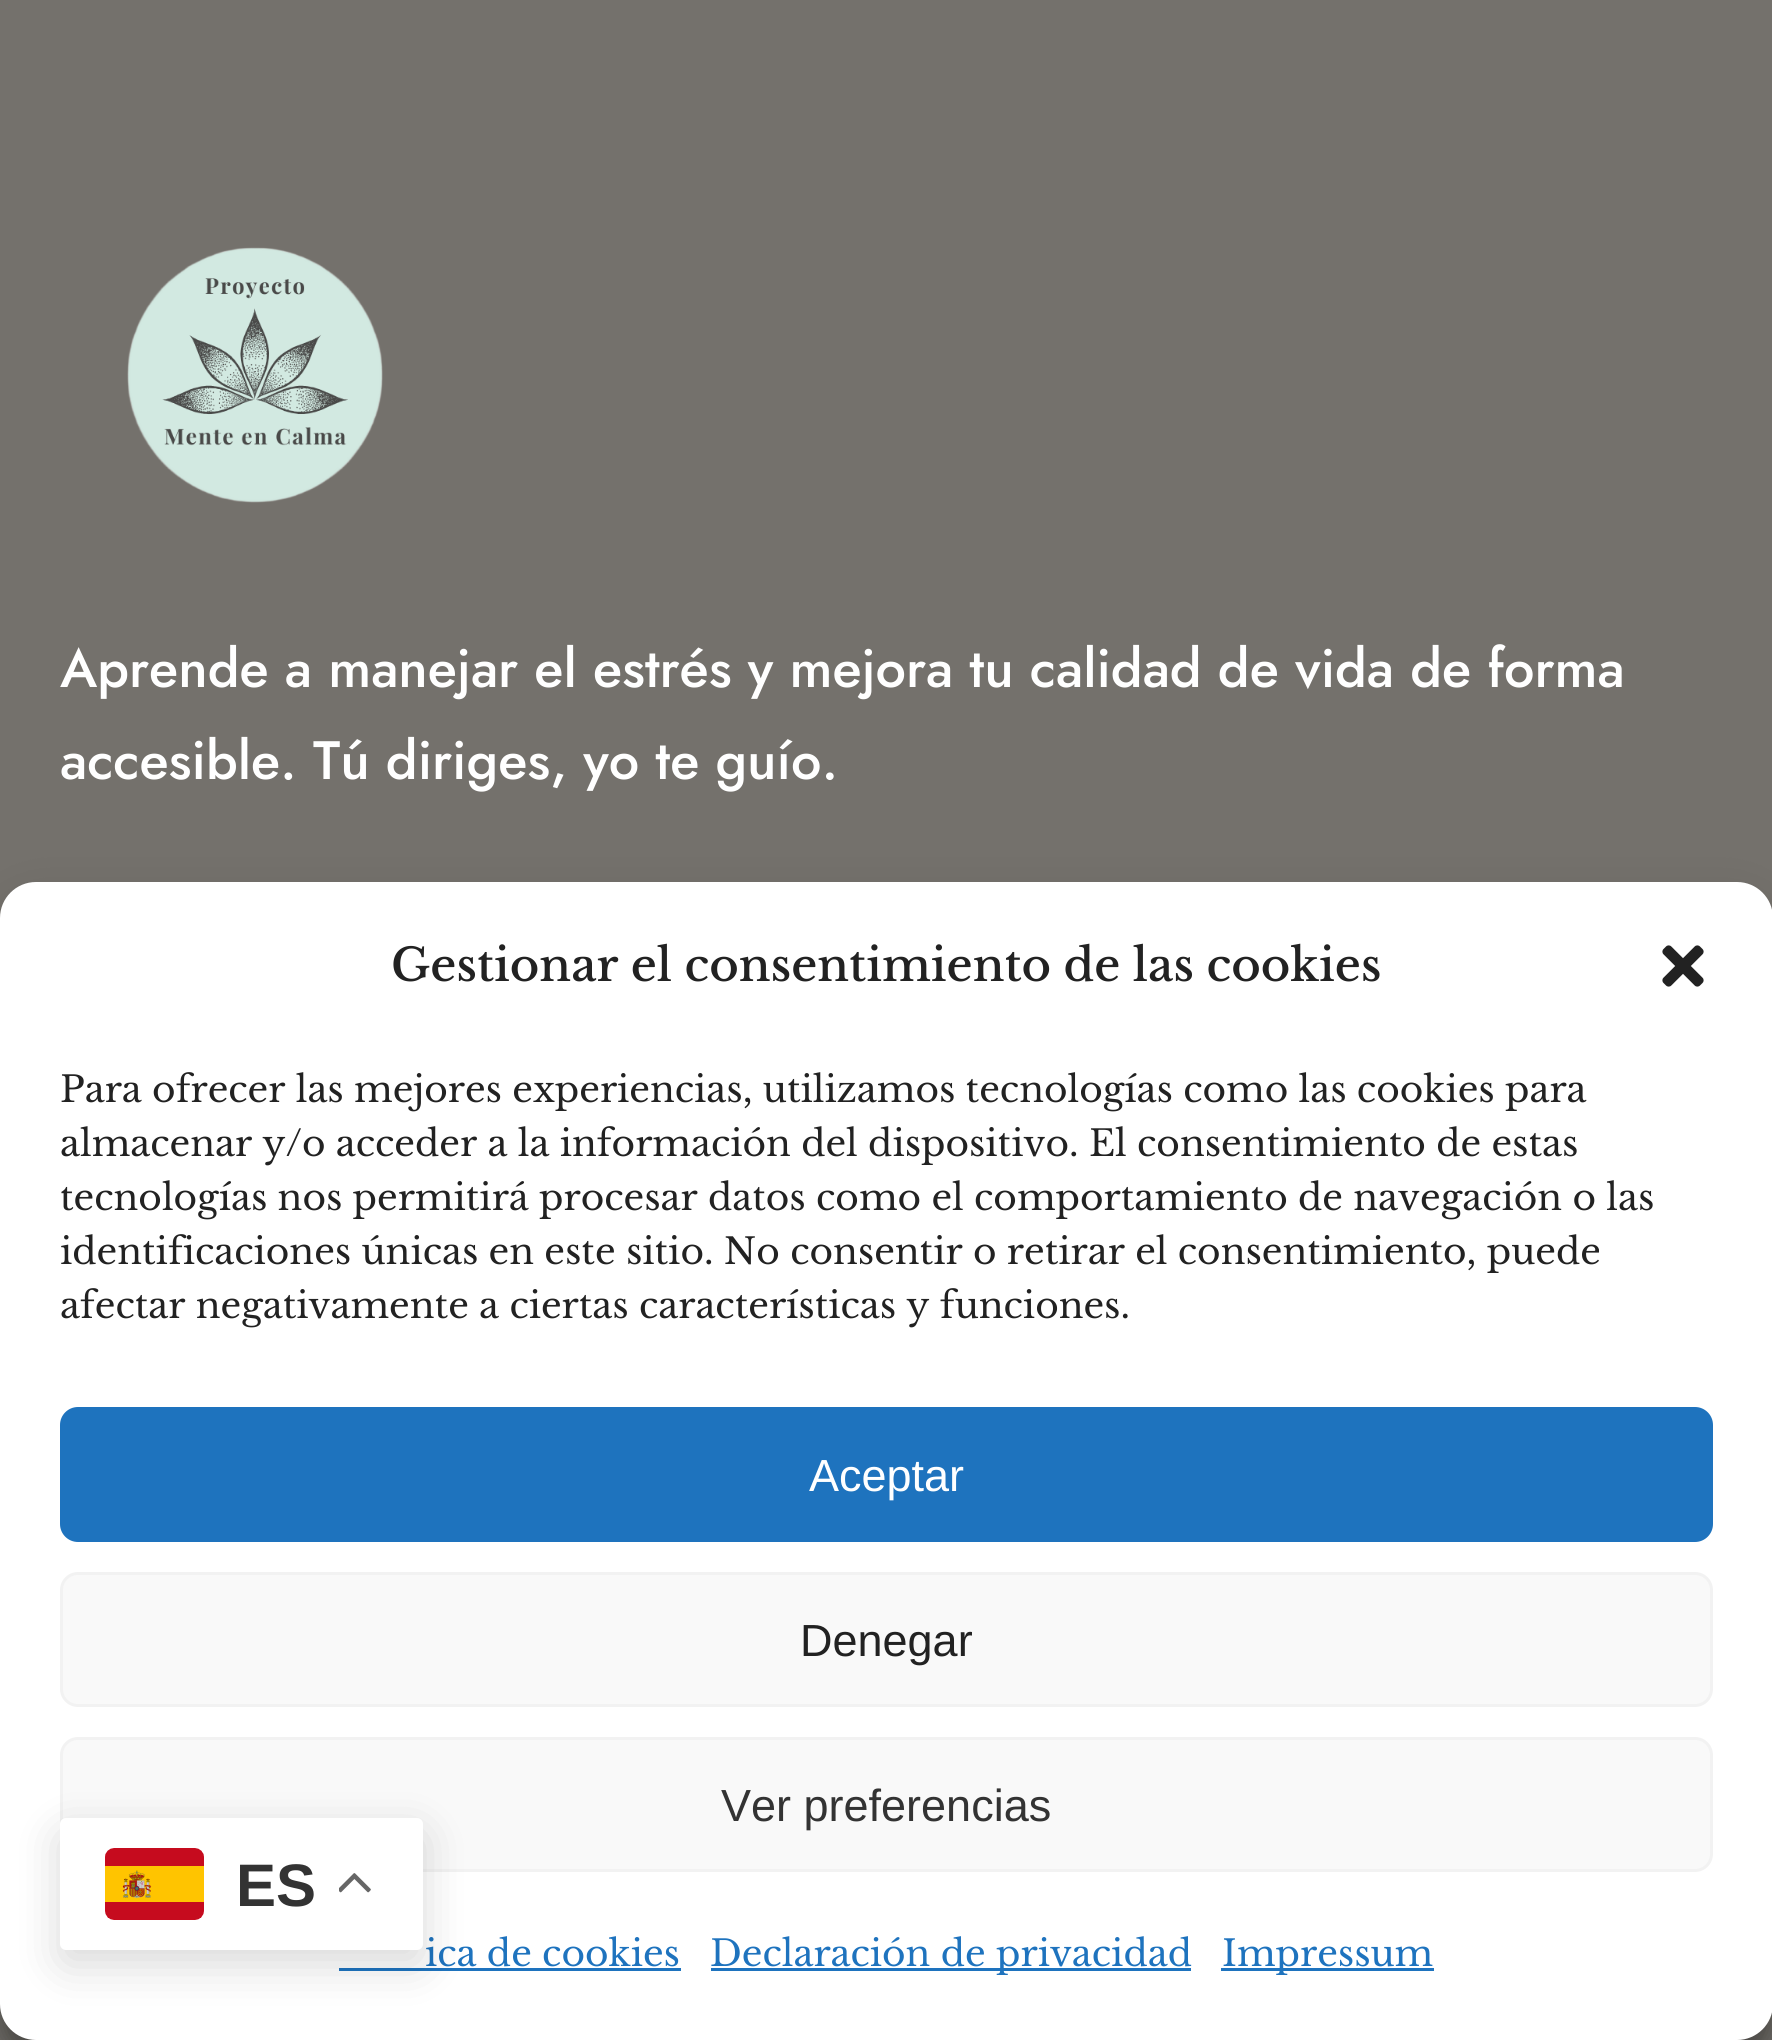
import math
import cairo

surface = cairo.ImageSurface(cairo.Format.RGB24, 1772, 2040)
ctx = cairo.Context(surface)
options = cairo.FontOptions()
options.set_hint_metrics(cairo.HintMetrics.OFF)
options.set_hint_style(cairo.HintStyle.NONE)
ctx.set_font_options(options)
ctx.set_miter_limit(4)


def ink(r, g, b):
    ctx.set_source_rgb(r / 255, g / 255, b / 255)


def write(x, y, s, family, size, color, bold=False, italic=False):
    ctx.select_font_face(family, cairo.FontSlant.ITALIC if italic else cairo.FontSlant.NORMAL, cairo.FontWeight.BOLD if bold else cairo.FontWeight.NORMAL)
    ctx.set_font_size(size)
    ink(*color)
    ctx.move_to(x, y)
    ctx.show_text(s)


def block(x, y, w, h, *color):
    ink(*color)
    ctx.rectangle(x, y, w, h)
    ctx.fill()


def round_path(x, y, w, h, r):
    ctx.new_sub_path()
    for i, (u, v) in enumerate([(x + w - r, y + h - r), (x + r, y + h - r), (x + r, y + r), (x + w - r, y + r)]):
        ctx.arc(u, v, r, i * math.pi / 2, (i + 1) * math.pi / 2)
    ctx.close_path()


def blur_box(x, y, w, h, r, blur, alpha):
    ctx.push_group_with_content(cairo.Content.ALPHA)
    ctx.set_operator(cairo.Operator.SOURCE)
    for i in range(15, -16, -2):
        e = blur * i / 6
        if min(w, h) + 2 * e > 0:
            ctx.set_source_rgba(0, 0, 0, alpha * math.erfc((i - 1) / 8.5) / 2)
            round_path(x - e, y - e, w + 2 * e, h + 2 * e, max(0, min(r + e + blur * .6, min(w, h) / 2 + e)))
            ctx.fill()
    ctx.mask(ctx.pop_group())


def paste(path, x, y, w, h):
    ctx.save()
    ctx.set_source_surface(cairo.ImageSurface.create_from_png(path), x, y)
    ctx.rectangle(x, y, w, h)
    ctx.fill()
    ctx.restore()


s1 = dict(family="Jost Medium", size=54, color=(255, 255, 255))
s2 = dict(family="Libre Baskerville Medium", size=45, color=(34, 34, 34))
s3 = dict(family="Libre Baskerville", size=36, color=(34, 34, 34))
s4 = dict(family="Liberation Sans", size=45, color=(255, 255, 255))
s5 = dict(family="Liberation Sans", size=45, color=(34, 34, 34))
s6 = dict(family="Liberation Sans", size=45, color=(51, 51, 51))
s7 = dict(family="Libre Baskerville", size=36, color=(30, 115, 190))
s8 = dict(family="Liberation Sans", size=60, color=(51, 51, 51), bold=True)

ink(116, 113, 108)
ctx.paint()
paste("pic1.png", 127, 247, 256, 256)
write(60, 687, "Aprende a manejar el estrés y mejora tu calidad de vida de forma", **s1)
write(60, 779, "accesible. Tú diriges, yo te guío.", **s1)
ink(0, 0, 0)
blur_box(0, 900, 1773, 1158, 36, 9, 0.23)
blur_box(0, 912, 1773, 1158, 36, 30, 0.19)
ink(255, 255, 255)
round_path(0, 882, 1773, 1158, 36)
ctx.fill()
write(391, 981, "Gestionar el consentimiento de las cookies", **s2)
paste("pic2.png", 1662, 945, 42, 42)
write(60, 1102, "Para ofrecer las mejores experiencias, utilizamos tecnologías como las cookies para", **s3)
write(60, 1156, "almacenar y/o acceder a la información del dispositivo. El consentimiento de estas", **s3)
write(60, 1210, "tecnologías nos permitirá procesar datos como el comportamiento de navegación o las", **s3)
write(60, 1264, "identificaciones únicas en este sitio. No consentir o retirar el consentimiento, puede", **s3)
write(60, 1318, "afectar negativamente a ciertas características y funciones.", **s3)
ink(30, 115, 190)
round_path(61.5, 1408.5, 1650, 132, 16.5)
ctx.fill_preserve()
ctx.set_line_width(3)
ctx.stroke()
write(809, 1491, "Aceptar", **s4)
ink(249, 249, 249)
round_path(61.5, 1573.5, 1650, 132, 16.5)
ctx.fill_preserve()
ink(242, 242, 242)
ctx.stroke()
write(800, 1656, "Denegar", **s5)
ink(249, 249, 249)
round_path(61.5, 1738.5, 1650, 132, 16.5)
ctx.fill_preserve()
ink(242, 242, 242)
ctx.stroke()
write(721, 1821, "Ver preferencias", **s6)
write(425, 1966, "ica de cookies", **s7)
block(339, 1968, 342, 3, 30, 115, 190)
block(711, 1968, 480, 3, 30, 115, 190)
write(710, 1966, "Declaración de privacidad", **s7)
block(1221, 1968, 213, 3, 30, 115, 190)
write(1222, 1966, "Impressum", **s7)
ink(0, 0, 0)
blur_box(60, 1833, 363, 132, 6, 22.5, 0.15)
ink(255, 255, 255)
round_path(60, 1818, 363, 132, 6)
ctx.fill()
paste("pic3.png", 105, 1848, 99, 72)
write(236, 1906, "ES", **s8)
paste("pic4.png", 339, 1873, 32, 20)
surface.write_to_png("screenshot.png")
